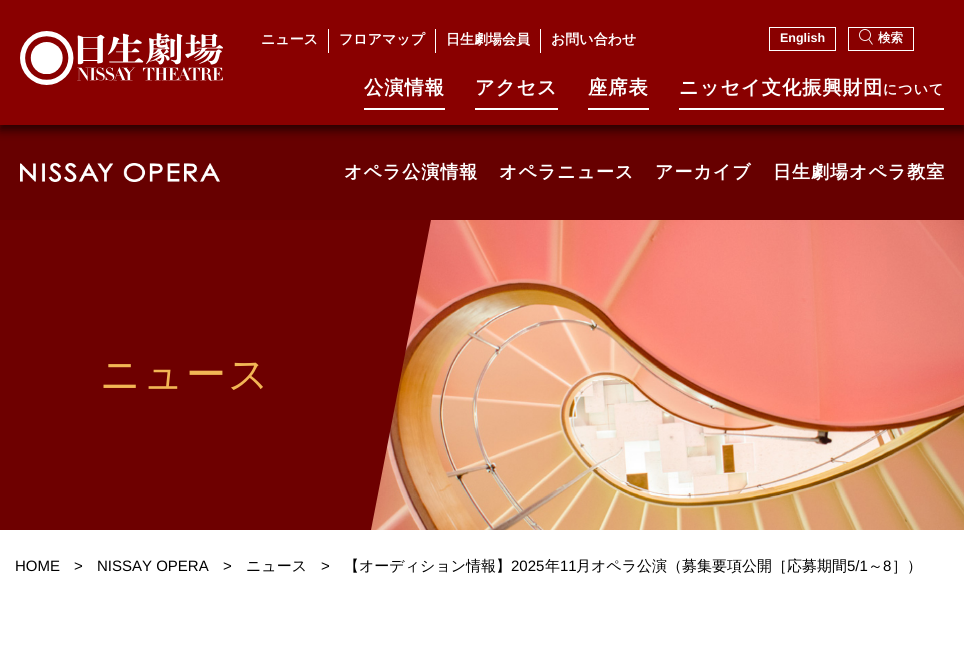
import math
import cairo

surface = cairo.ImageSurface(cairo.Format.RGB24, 964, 661)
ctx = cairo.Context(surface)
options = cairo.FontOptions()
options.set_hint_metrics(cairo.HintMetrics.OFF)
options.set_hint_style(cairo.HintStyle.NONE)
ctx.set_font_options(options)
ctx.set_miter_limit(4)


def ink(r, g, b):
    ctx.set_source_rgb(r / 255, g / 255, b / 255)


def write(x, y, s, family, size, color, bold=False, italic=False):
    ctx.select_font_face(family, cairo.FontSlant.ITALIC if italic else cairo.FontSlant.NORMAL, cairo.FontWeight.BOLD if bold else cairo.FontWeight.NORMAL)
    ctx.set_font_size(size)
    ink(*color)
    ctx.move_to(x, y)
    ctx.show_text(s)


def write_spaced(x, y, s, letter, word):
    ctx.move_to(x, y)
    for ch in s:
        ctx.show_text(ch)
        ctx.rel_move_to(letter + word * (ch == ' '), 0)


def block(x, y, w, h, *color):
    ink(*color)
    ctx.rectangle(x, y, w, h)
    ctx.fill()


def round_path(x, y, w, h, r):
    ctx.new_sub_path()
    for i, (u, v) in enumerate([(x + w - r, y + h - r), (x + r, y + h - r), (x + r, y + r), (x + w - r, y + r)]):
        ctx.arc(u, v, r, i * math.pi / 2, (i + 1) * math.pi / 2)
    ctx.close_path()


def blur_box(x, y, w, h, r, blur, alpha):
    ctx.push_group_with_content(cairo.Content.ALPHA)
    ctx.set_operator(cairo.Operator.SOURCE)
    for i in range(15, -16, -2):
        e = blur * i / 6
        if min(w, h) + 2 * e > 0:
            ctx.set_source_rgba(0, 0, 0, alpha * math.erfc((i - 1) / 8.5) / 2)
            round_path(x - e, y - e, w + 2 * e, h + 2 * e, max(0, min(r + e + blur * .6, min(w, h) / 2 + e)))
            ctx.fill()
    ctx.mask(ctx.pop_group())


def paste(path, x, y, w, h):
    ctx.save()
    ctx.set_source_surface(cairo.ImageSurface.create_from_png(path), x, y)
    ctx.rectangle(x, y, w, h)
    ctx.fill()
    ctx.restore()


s1 = dict(family="WenQuanYi Zen Hei", size=14, color=(255, 255, 255), bold=True)
s2 = dict(family="Liberation Sans", size=12.5, color=(255, 255, 255), bold=True)
s3 = dict(family="WenQuanYi Zen Hei", size=12.5, color=(255, 255, 255), bold=True)
s4 = dict(family="Liberation Sans", size=15, color=(0, 0, 0))
s5 = dict(family="WenQuanYi Zen Hei Medium", size=15, color=(0, 0, 0))

ink(255, 255, 255)
ctx.paint()
block(0, 125, 964, 95, 103, 0, 0)
ink(0, 0, 0)
blur_box(0, 5, 964, 125, 0, 5, 0.65)
block(0, 0, 964, 125, 137, 0, 0)
paste("pic1.png", 20, 31, 203, 54)
write(261, 44, "ニュース", **s1)
block(328, 29, 1, 24, 255, 255, 255)
write(339, 44, "フロアマップ", **s1)
block(435, 29, 1, 24, 255, 255, 255)
write(446, 44, "日生劇場会員", **s1)
block(540, 29, 1, 24, 255, 255, 255)
write(551, 44, "お問い合わせ", **s1)
ctx.rectangle(769.5, 27.5, 66, 23)
ctx.set_line_width(1)
ctx.stroke()
write(780, 42, "English", **s2)
ctx.rectangle(848.5, 27.5, 65, 23)
ctx.stroke()
ctx.arc(865, 35, 5.5, 0, 2 * math.pi)
ctx.set_line_width(0.9)
ctx.stroke()
write(878, 42, "検索", **s3)
ctx.new_path()
ctx.move_to(869, 39.5)
ctx.line_to(872.5, 44.5)
ctx.stroke()
ctx.set_font_size(19.25)
write_spaced(364, 94, "公演情報", 1, 0)
block(364, 108, 81, 2, 255, 255, 255)
write_spaced(475, 94, "アクセス", 1, 0)
block(475, 108, 83, 2, 255, 255, 255)
write_spaced(588, 94, "座席表", 1, 0)
block(588, 108, 61, 2, 255, 255, 255)
write_spaced(679, 94, "ニッセイ⽂化振興財団", 1, 0)
ctx.set_font_size(14)
write_spaced(883, 94, "について", 1, 0)
block(679, 108, 265, 2, 255, 255, 255)
paste("pic2.png", 20, 163, 200, 19)
ctx.set_font_size(18)
write_spaced(344, 178, "オペラ公演情報", 1, 0)
write_spaced(499, 178, "オペラニュース", 1, 0)
write_spaced(655, 178, "アーカイブ", 1, 0)
write_spaced(773, 178, "日生劇場オペラ教室", 1, 0)
block(0, 220, 371, 310, 110, 0, 0)
ctx.select_font_face("WenQuanYi Zen Hei Medium")
ctx.set_font_size(40)
ink(242, 182, 85)
write_spaced(100, 388, "ニュース", 2, 0)
paste("pic3.png", 371, 220, 593, 310)
ink(110, 0, 0)
ctx.new_path()
ctx.move_to(371, 220)
ctx.line_to(431, 220)
ctx.line_to(371, 530)
ctx.close_path()
ctx.fill()
write(15, 571, "HOME", **s4)
write(74, 571, ">", **s4)
write(97, 571, "NISSAY OPERA", **s4)
write(223, 571, ">", **s4)
write(246, 571, "ニュース", **s5)
write(321, 571, ">", **s4)
write(344, 571, "【オーディション情報】", **s5)
write(511, 571, "2025", **s4)
write(545, 571, "年", **s5)
write(560, 571, "11", **s4)
write(576, 571, "月オペラ公演（募集要項公開［応募期間", **s5)
write(847, 571, "5/1", **s4)
write(868, 571, "～", **s5)
write(883, 571, "8", **s4)
write(892, 571, "］）", **s5)
surface.write_to_png("screenshot.png")
